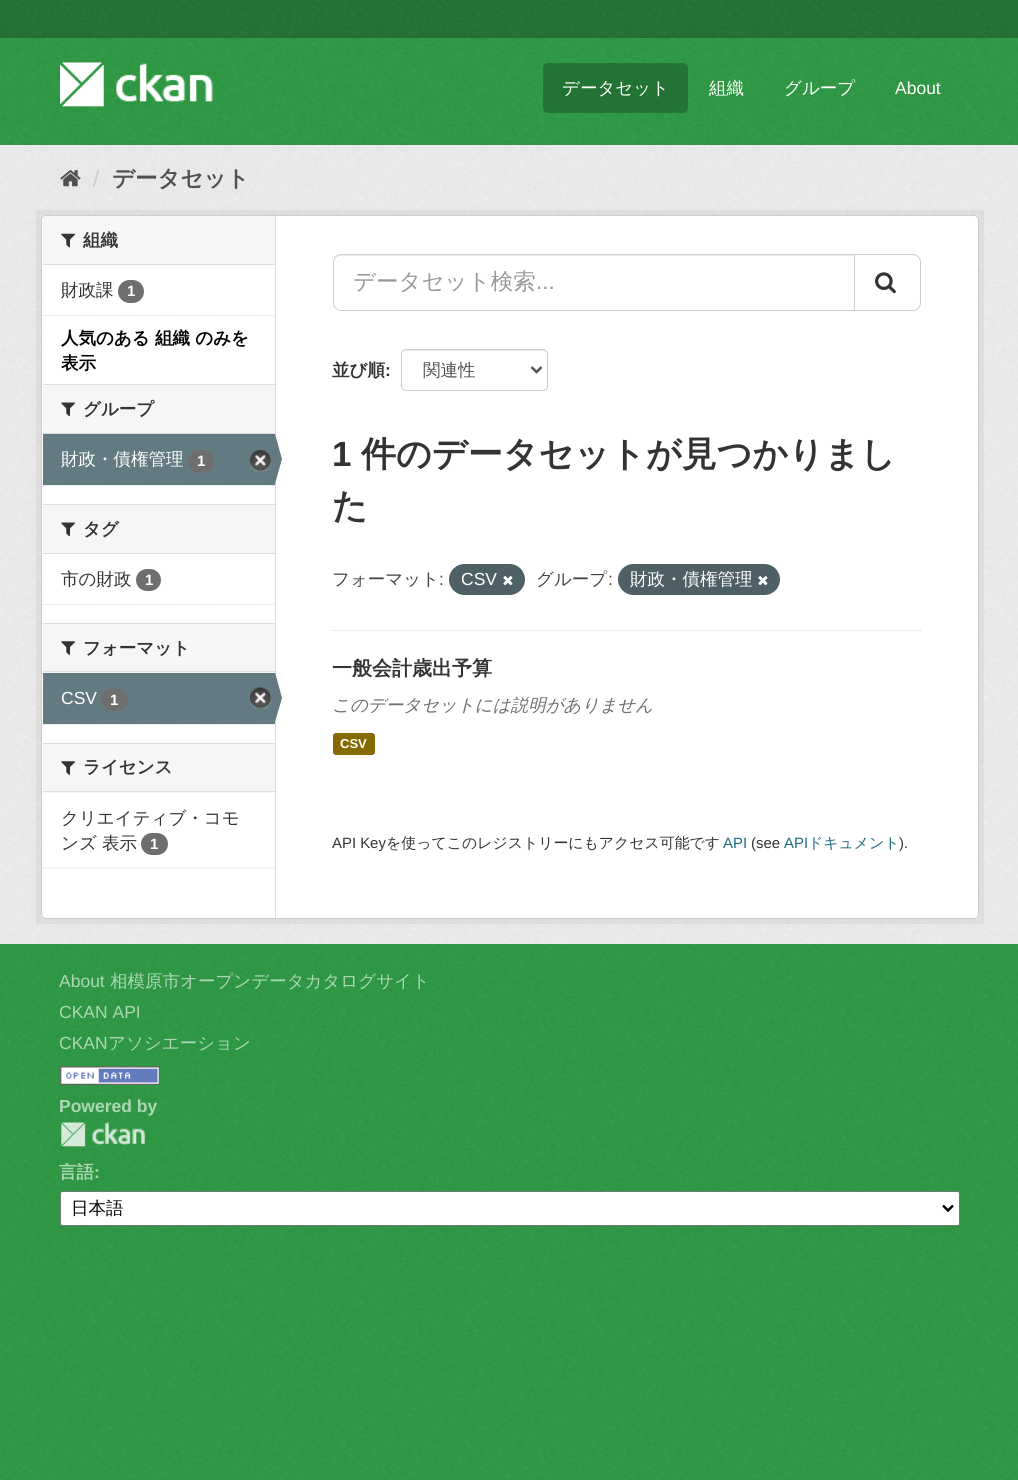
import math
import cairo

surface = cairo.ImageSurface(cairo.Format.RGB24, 1018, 1480)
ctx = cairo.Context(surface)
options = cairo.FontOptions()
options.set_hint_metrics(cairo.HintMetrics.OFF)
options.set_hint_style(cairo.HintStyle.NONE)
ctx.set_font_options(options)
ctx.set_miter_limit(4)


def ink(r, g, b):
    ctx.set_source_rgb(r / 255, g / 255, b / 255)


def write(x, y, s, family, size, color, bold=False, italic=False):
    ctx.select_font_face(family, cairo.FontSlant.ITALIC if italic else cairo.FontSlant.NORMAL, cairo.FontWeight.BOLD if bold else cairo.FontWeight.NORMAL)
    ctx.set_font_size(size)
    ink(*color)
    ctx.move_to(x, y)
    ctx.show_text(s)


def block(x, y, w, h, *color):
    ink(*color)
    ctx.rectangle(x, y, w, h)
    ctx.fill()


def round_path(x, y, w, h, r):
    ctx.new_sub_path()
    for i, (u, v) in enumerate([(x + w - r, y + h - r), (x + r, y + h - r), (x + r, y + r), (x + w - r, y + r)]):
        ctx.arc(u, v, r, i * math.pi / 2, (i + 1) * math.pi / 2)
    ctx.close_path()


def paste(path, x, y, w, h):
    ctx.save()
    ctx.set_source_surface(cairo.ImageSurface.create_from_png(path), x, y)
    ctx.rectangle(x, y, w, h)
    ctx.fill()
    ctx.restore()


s1 = dict(family="WenQuanYi Zen Hei Medium", size=17.5, color=(255, 255, 255))
s2 = dict(family="Liberation Sans", size=17.5, color=(255, 255, 255))
s3 = dict(family="Liberation Sans", size=22.5, color=(204, 204, 204))
s4 = dict(family="WenQuanYi Zen Hei", size=22.5, color=(80, 80, 80), bold=True)
s5 = dict(family="WenQuanYi Zen Hei", size=17.5, color=(51, 51, 51), bold=True)
s6 = dict(family="WenQuanYi Zen Hei Medium", size=17.5, color=(51, 51, 51))
s7 = dict(family="Liberation Sans", size=15, color=(255, 255, 255), bold=True)
s8 = dict(family="WenQuanYi Zen Hei", size=17.5, color=(0, 0, 0), bold=True)
s9 = dict(family="WenQuanYi Zen Hei Medium", size=22.5, color=(153, 153, 153))
s10 = dict(family="Liberation Sans", size=22.5, color=(153, 153, 153))
s11 = dict(family="Liberation Sans", size=17.5, color=(51, 51, 51), bold=True)
s12 = dict(family="WenQuanYi Zen Hei Medium", size=17.5, color=(80, 80, 80))
s13 = dict(family="Liberation Sans", size=35, color=(51, 51, 51), bold=True)
s14 = dict(family="WenQuanYi Zen Hei", size=35, color=(51, 51, 51), bold=True)
s15 = dict(family="WenQuanYi Zen Hei Medium", size=17.5, color=(68, 68, 68))
s16 = dict(family="Liberation Sans", size=17.5, color=(68, 68, 68))
s17 = dict(family="WenQuanYi Zen Hei", size=20, color=(51, 51, 51), bold=True)
s18 = dict(family="WenQuanYi Zen Hei Medium", size=17.5, color=(110, 110, 110), italic=True)
s19 = dict(family="Liberation Sans", size=13, color=(255, 255, 255), bold=True)
s20 = dict(family="Liberation Sans", size=14.9, color=(51, 51, 51))
s21 = dict(family="WenQuanYi Zen Hei Medium", size=14.9, color=(51, 51, 51))
s22 = dict(family="Liberation Sans", size=14.9, color=(32, 107, 130))
s23 = dict(family="WenQuanYi Zen Hei Medium", size=14.9, color=(32, 107, 130))
s24 = dict(family="Liberation Sans", size=17.5, color=(172, 215, 181))
s25 = dict(family="WenQuanYi Zen Hei Medium", size=17.5, color=(172, 215, 181))
s26 = dict(family="Liberation Sans", size=17.5, color=(172, 215, 181), bold=True)
s27 = dict(family="WenQuanYi Zen Hei", size=17.5, color=(172, 215, 181), bold=True)
s28 = dict(family="WenQuanYi Zen Hei Medium", size=17.5, color=(0, 0, 0))

ink(47, 155, 69)
ctx.paint()
paste("pic1.png", 0, 1251, 1018, 229)
block(0, 0, 1018, 38, 35, 116, 52)
paste("pic2.png", 0, 0, 1017, 37)
paste("pic3.png", 0, 38, 1018, 107)
paste("pic4.png", 60, 62, 153, 45)
round_path(543, 63, 145, 50, 5)
ctx.fill()
write(562, 94, "データセット", **s1)
write(709, 94, "組織", **s1)
write(784, 94, "グループ", **s1)
write(895, 94, "About", **s2)
block(0, 145, 1018, 799, 238, 238, 238)
paste("pic5.png", 0, 145, 1018, 799)
paste("pic6.png", 60, 170, 21, 17)
write(93, 186, "/", **s3)
write(112, 186, "データセット", **s4)
ctx.rectangle(38.5, 212.5, 943, 709)
ctx.set_source_rgba(0, 0, 0, 0.05)
ctx.set_line_width(5)
ctx.stroke()
ink(255, 255, 255)
round_path(41.5, 215.5, 937, 703, 4.5)
ctx.fill_preserve()
ink(204, 204, 204)
ctx.set_line_width(1)
ctx.stroke()
ink(246, 246, 246)
ctx.new_path()
ctx.move_to(47, 216)
ctx.line_to(275, 216)
ctx.line_to(275, 265)
ctx.line_to(43, 265)
ctx.line_to(43, 220)
ctx.curve_to(43, 218, 45, 216, 47, 216)
ctx.close_path()
ctx.fill()
block(43, 264, 232, 1, 221, 221, 221)
paste("pic7.png", 61, 233, 14, 15)
write(83, 246, "組織", **s5)
write(61, 296, "財政課", **s6)
ink(110, 110, 110)
round_path(118, 280, 26, 23, 11.5)
ctx.fill()
write(127, 296, "1", **s7)
ctx.new_path()
ctx.move_to(42.5, 315.5)
ctx.line_to(275, 315.5)
ink(221, 221, 221)
ctx.set_line_width(1.2)
ctx.set_dash([1.25, 1.25])
ctx.stroke()
write(61, 344, "人気のある 組織 のみを", **s8)
write(61, 369, "表示", **s8)
block(43, 385, 232, 48, 246, 246, 246)
block(43, 384, 232, 1, 221, 221, 221)
block(43, 433, 232, 1, 221, 221, 221)
paste("pic8.png", 61, 402, 14, 15)
write(83, 415, "グループ", **s5)
ctx.new_path()
ctx.move_to(42.5, 485.5)
ctx.line_to(275, 485.5)
ink(221, 221, 221)
ctx.stroke()
block(43, 434, 232, 51, 100, 122, 130)
write(61, 465, "財政・債権管理", **s1)
ink(110, 110, 110)
round_path(188, 450, 26, 23, 11.5)
ctx.fill()
write(197, 466, "1", **s7)
paste("pic9.png", 250, 450, 22, 22)
block(275, 216, 1, 702, 221, 221, 221)
ink(100, 122, 130)
ctx.new_path()
ctx.move_to(275, 484)
ctx.line_to(275, 434)
ctx.line_to(282, 459)
ctx.close_path()
ctx.fill()
block(43, 505, 232, 48, 246, 246, 246)
block(43, 504, 232, 1, 221, 221, 221)
block(43, 553, 232, 1, 221, 221, 221)
paste("pic8.png", 61, 522, 14, 15)
write(83, 535, "タグ", **s5)
write(61, 585, "市の財政", **s6)
ink(110, 110, 110)
round_path(136, 569, 25, 22, 11)
ctx.fill()
write(145, 585, "1", **s7)
ctx.new_path()
ctx.move_to(42.5, 604.5)
ctx.line_to(275, 604.5)
ink(221, 221, 221)
ctx.stroke()
block(43, 624, 232, 49, 246, 246, 246)
block(43, 623, 232, 1, 221, 221, 221)
block(43, 671, 232, 1, 221, 221, 221)
paste("pic10.png", 61, 641, 14, 14)
write(83, 654, "フォーマット", **s5)
ctx.new_path()
ctx.move_to(42.5, 724.5)
ctx.line_to(275, 724.5)
ink(221, 221, 221)
ctx.stroke()
block(43, 673, 232, 51, 100, 122, 130)
write(61, 704, "CSV", **s2)
ink(110, 110, 110)
round_path(101, 689, 27, 22, 11)
ctx.fill()
write(110, 705, "1", **s7)
paste("pic11.png", 250, 687, 22, 22)
ink(100, 122, 130)
ctx.new_path()
ctx.move_to(275, 722)
ctx.line_to(275, 672)
ctx.line_to(282, 698)
ctx.close_path()
ctx.fill()
block(43, 744, 232, 49, 246, 246, 246)
block(43, 743, 232, 1, 221, 221, 221)
block(43, 791, 232, 1, 221, 221, 221)
paste("pic10.png", 61, 761, 14, 14)
write(83, 773, "ライセンス", **s5)
write(61, 824, "クリエイティブ・コモ", **s6)
write(61, 849, "ンズ 表示", **s6)
ink(110, 110, 110)
round_path(141, 833, 27, 22, 11)
ctx.fill()
write(150, 849, "1", **s7)
ctx.new_path()
ctx.move_to(42.5, 868)
ctx.line_to(275, 868)
ink(221, 221, 221)
ctx.stroke()
ctx.new_path()
ctx.move_to(332.5, 630.5)
ctx.line_to(921, 630.5)
ctx.stroke()
ink(236, 236, 236)
ctx.new_path()
ctx.move_to(340, 256)
ctx.line_to(854, 256)
ctx.line_to(854, 255)
ctx.line_to(340, 255)
ctx.curve_to(336, 255, 334, 258, 334, 262)
ctx.curve_to(334, 259, 337, 256, 340, 256)
ctx.close_path()
ctx.fill()
ctx.new_path()
ctx.move_to(341, 254.5)
ctx.line_to(854.5, 254.5)
ctx.line_to(854.5, 310.5)
ctx.line_to(341, 310.5)
ctx.curve_to(337, 310.5, 333.5, 307, 333.5, 303)
ctx.line_to(333.5, 262)
ctx.curve_to(333.5, 258, 337, 254.5, 341, 254.5)
ctx.close_path()
ink(204, 204, 204)
ctx.set_line_width(1)
ctx.set_dash([])
ctx.stroke()
write(353, 289, "データセット検索", **s9)
write(536, 289, "...", **s10)
ink(255, 255, 255)
ctx.new_path()
ctx.move_to(854.5, 254.5)
ctx.line_to(913, 254.5)
ctx.curve_to(917, 254.5, 920.5, 258, 920.5, 262)
ctx.line_to(920.5, 303)
ctx.curve_to(920.5, 307, 917, 310.5, 913, 310.5)
ctx.line_to(854.5, 310.5)
ctx.close_path()
ctx.fill_preserve()
ink(204, 204, 204)
ctx.stroke()
paste("pic12.png", 875, 272, 21, 22)
write(332, 376, "並び順", **s5)
write(385, 376, ":", **s11)
ink(236, 236, 236)
ctx.new_path()
ctx.move_to(406, 351)
ctx.line_to(542, 351)
ctx.curve_to(545, 351, 546, 353, 546, 355)
ctx.curve_to(546, 353, 546, 351, 544, 350)
ctx.line_to(406, 350)
ctx.curve_to(405, 350, 404, 351, 404, 352)
ctx.close_path()
ctx.fill()
round_path(401.5, 349.5, 146, 41, 4.5)
ink(204, 204, 204)
ctx.stroke()
ctx.new_path()
ctx.move_to(531.5, 367)
ctx.line_to(536.5, 372)
ctx.line_to(541.5, 367)
ink(85, 85, 85)
ctx.set_line_width(2.5)
ctx.stroke()
write(423, 376, "関連性", **s12)
write(332, 466, "1", **s13)
write(361, 466, "件のデータセットが見つかりまし", **s14)
write(332, 518, "た", **s14)
write(332, 585, "フォーマット", **s15)
write(439, 585, ":", **s16)
ink(78, 95, 101)
round_path(449, 564, 76, 31, 15.5)
ctx.fill()
write(461, 585, "CSV", **s2)
paste("pic13.png", 503, 576, 10, 10)
write(536, 585, "グループ", **s15)
write(608, 585, ":", **s16)
ink(78, 95, 101)
round_path(618, 564, 162, 31, 15.5)
ctx.fill()
write(630, 585, "財政・債権管理", **s1)
paste("pic13.png", 758, 576, 10, 10)
write(332, 675, "一般会計歳出予算", **s17)
write(332, 711, "このデータセットには説明がありません", **s18)
ink(133, 106, 0)
round_path(333, 733, 42, 22, 3)
ctx.fill()
write(340, 748, "CSV", **s19)
write(332, 848, "API Key", **s20)
write(386, 848, "を使ってこのレジストリーにもアクセス可能です", **s21)
write(723, 848, "API", **s22)
write(751, 848, "(see", **s20)
write(784, 848, "API", **s22)
write(808, 848, "ドキュメント", **s23)
write(899, 848, ").", **s20)
paste("pic14.png", 0, 944, 1018, 307)
write(59, 987, "About", **s24)
write(110, 987, "相模原市オープンデータカタログサイト", **s25)
write(59, 1018, "CKAN API", **s24)
write(59, 1049, "CKAN", **s24)
write(108, 1049, "アソシエーション", **s25)
paste("pic15.png", 60, 1066, 100, 19)
write(59, 1112, "Powered by", **s26)
paste("pic16.png", 61, 1122, 84, 25)
write(59, 1178, "言語", **s27)
write(94, 1178, ":", **s26)
ink(255, 255, 255)
round_path(60.5, 1191.5, 899, 34, 2)
ctx.fill_preserve()
ink(118, 118, 118)
ctx.set_line_width(1)
ctx.stroke()
ctx.new_path()
ctx.move_to(943, 1205.5)
ctx.line_to(948, 1210.5)
ctx.line_to(953, 1205.5)
ink(0, 0, 0)
ctx.set_line_width(2.5)
ctx.stroke()
write(71, 1214, "日本語", **s28)
surface.write_to_png("screenshot.png")
